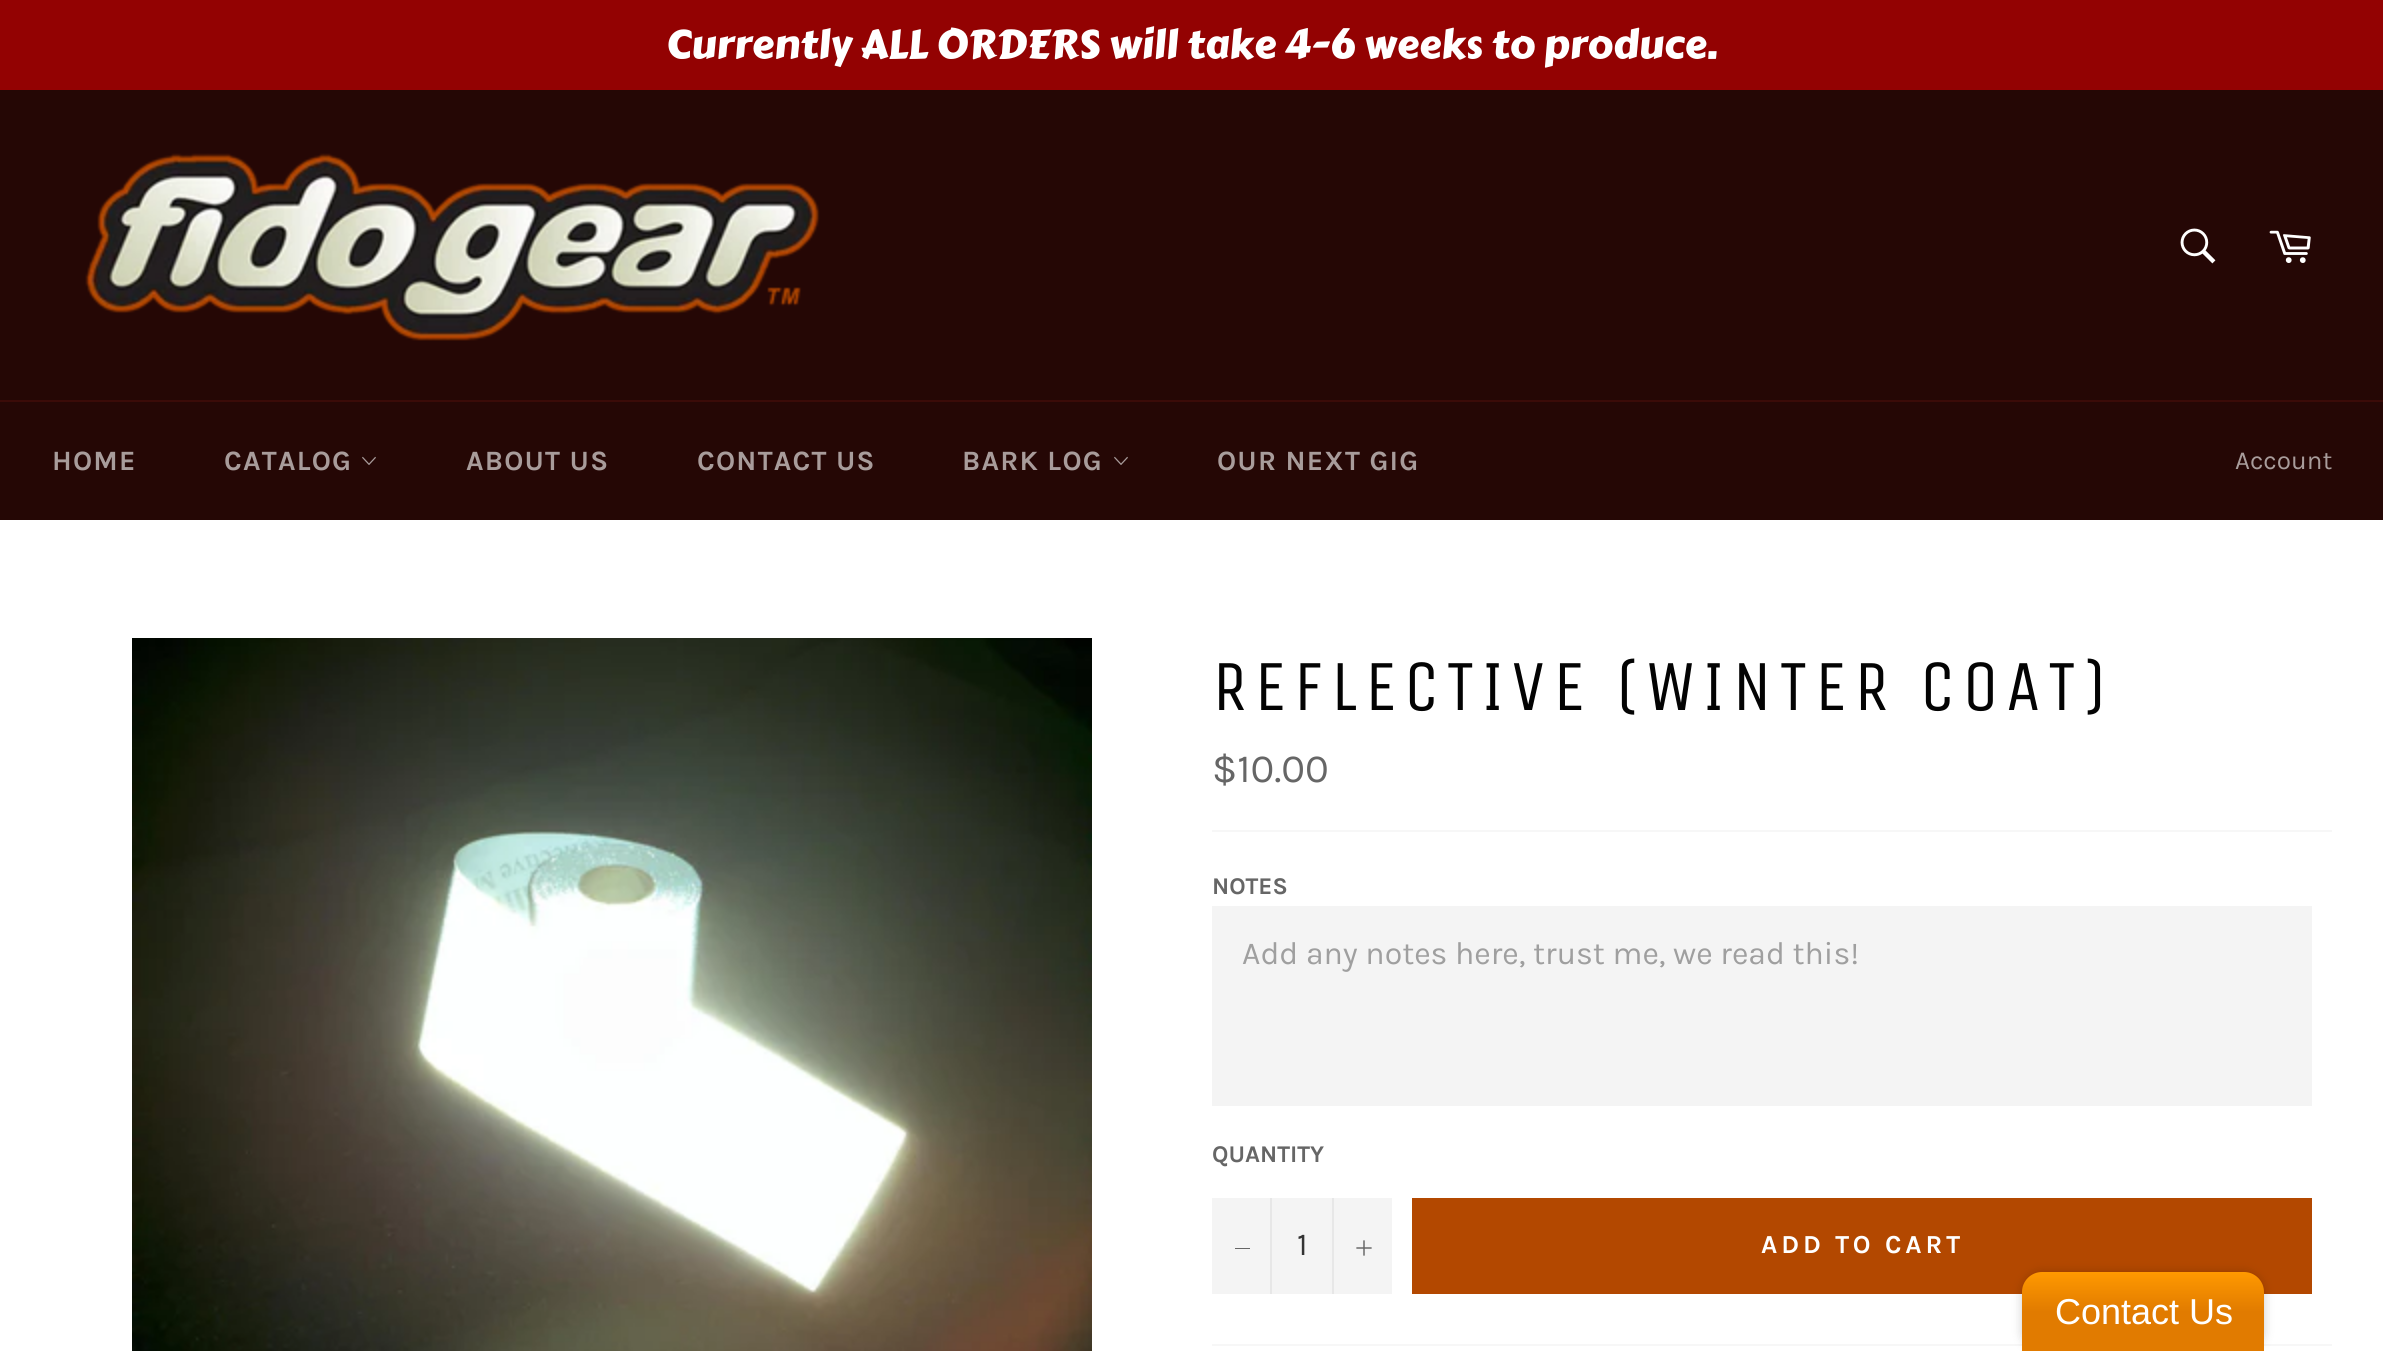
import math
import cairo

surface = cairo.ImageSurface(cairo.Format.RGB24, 2383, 1351)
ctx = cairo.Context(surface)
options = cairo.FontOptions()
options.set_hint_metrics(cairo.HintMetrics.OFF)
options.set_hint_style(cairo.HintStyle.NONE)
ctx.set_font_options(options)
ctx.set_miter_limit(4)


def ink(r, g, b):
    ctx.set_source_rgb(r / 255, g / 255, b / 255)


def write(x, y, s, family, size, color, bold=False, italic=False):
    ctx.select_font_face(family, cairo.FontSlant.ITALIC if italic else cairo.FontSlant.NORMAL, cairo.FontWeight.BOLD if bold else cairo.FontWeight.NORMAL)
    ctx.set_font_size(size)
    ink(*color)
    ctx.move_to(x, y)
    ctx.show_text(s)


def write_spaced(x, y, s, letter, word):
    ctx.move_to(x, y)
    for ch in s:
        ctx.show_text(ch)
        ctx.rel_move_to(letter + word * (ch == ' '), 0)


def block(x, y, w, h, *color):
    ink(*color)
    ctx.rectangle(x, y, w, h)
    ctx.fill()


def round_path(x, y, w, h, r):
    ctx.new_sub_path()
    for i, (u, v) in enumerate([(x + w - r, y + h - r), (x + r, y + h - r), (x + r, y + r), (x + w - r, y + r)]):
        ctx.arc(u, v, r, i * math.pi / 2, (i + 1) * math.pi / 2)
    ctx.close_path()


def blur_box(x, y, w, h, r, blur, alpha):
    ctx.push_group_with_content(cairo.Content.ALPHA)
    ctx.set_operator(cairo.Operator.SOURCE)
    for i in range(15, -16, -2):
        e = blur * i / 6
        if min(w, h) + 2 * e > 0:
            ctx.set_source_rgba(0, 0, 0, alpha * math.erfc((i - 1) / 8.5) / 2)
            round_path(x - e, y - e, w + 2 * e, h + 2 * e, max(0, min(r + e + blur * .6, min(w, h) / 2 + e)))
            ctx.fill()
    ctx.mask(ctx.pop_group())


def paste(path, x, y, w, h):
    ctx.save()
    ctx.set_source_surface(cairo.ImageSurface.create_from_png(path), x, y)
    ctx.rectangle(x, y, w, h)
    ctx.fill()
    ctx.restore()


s1 = dict(family="Carter One", size=40, color=(255, 255, 255))
s2 = dict(family="Karla", size=26, color=(168, 156, 155))
s3 = dict(family="Karla", size=40, color=(102, 102, 102))
s4 = dict(family="Karla", size=24, color=(102, 102, 102), bold=True)
s5 = dict(family="Karla", size=32, color=(159, 159, 159))
s6 = dict(family="Karla", size=32, color=(51, 51, 51))
s7 = dict(family="Liberation Sans", size=36, color=(255, 255, 255))

ink(37, 7, 5)
ctx.paint()
block(0, 0, 2383, 90, 147, 2, 2)
write(666, 58, "Currently ALL ORDERS will take 4-6 weeks to produce.", **s1)
paste("pic1.png", 85, 153, 735, 188)
paste("pic2.png", 2180, 228, 36, 36)
paste("pic3.png", 2269, 230, 42, 33)
block(0, 400, 2383, 2, 59, 11, 8)
ctx.select_font_face("Karla", cairo.FontSlant.NORMAL, cairo.FontWeight.BOLD)
ctx.set_font_size(28)
ink(168, 156, 155)
write_spaced(52, 470, "HOME", 1.25, 0)
write_spaced(224, 470, "CATALOG", 1.25, 0)
paste("pic4.png", 362, 456, 14, 9)
write_spaced(466, 470, "ABOUT US", 1.25, 0)
write_spaced(697, 470, "CONTACT US", 1.25, 0)
write_spaced(962, 470, "BARK LOG", 1.25, 0)
paste("pic4.png", 1114, 456, 14, 9)
write_spaced(1217, 470, "OUR NEXT GIG", 1.25, 0)
write(2235, 469, "Account", **s2)
block(0, 520, 2383, 831, 255, 255, 255)
paste("pic5.png", 132, 638, 960, 713)
ctx.select_font_face("Unica One")
ctx.set_font_size(72)
ink(3, 3, 3)
write_spaced(1212, 710, "REFLECTIVE (WINTER COAT)", 7.2, 0)
write(1212, 782, "$10.00", **s3)
block(1212, 830, 1120, 2, 247, 247, 247)
write(1212, 894, "NOTES", **s4)
block(1212, 906, 1100, 200, 244, 244, 244)
write(1242, 964, "Add any notes here, trust me, we read this!", **s5)
write(1212, 1162, "QUANTITY", **s4)
block(1212, 1198, 180, 96, 244, 244, 244)
block(1270, 1198, 2, 96, 231, 231, 231)
block(1235, 1248, 15, 1, 102, 102, 102)
write(1297, 1255, "1", **s6)
block(1332, 1198, 2, 96, 231, 231, 231)
paste("pic6.png", 1356, 1240, 16, 16)
block(1412, 1198, 900, 96, 179, 72, 0)
ctx.select_font_face("Karla", cairo.FontSlant.NORMAL, cairo.FontWeight.BOLD)
ctx.set_font_size(26)
ink(255, 255, 255)
write_spaced(1761, 1253, "ADD TO CART", 3.9, 0)
block(1212, 1344, 1120, 2, 247, 247, 247)
ink(0, 0, 0)
blur_box(2022, 1272, 242, 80, 20, 5, 0.2)
gradient = cairo.LinearGradient(2143, 1272, 2143, 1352)
gradient.add_color_stop_rgba(0, 1, 0.6, 0, 1)
gradient.add_color_stop_rgba(0.5, 0.882, 0.482, 0, 1)
ctx.set_source(gradient)
ctx.new_path()
ctx.move_to(2042, 1272)
ctx.line_to(2244, 1272)
ctx.curve_to(2255, 1272, 2264, 1281, 2264, 1292)
ctx.line_to(2264, 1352)
ctx.line_to(2022, 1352)
ctx.line_to(2022, 1292)
ctx.curve_to(2022, 1281, 2031, 1272, 2042, 1272)
ctx.close_path()
ctx.fill()
write(2055, 1324, "Contact Us", **s7)
surface.write_to_png("screenshot.png")
